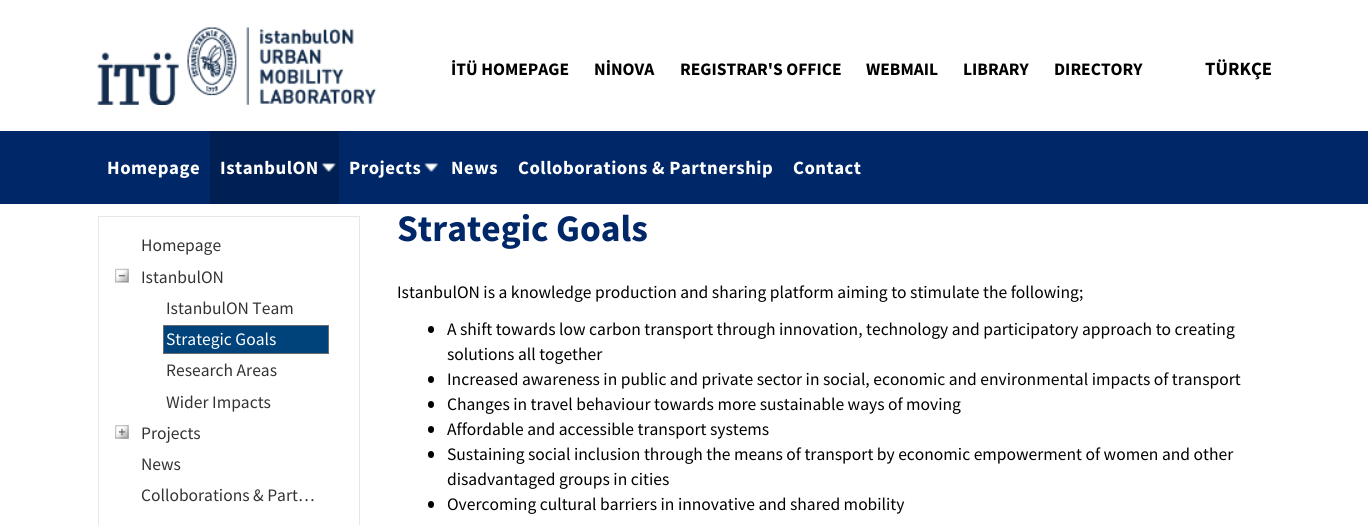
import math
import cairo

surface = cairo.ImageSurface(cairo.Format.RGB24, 1368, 525)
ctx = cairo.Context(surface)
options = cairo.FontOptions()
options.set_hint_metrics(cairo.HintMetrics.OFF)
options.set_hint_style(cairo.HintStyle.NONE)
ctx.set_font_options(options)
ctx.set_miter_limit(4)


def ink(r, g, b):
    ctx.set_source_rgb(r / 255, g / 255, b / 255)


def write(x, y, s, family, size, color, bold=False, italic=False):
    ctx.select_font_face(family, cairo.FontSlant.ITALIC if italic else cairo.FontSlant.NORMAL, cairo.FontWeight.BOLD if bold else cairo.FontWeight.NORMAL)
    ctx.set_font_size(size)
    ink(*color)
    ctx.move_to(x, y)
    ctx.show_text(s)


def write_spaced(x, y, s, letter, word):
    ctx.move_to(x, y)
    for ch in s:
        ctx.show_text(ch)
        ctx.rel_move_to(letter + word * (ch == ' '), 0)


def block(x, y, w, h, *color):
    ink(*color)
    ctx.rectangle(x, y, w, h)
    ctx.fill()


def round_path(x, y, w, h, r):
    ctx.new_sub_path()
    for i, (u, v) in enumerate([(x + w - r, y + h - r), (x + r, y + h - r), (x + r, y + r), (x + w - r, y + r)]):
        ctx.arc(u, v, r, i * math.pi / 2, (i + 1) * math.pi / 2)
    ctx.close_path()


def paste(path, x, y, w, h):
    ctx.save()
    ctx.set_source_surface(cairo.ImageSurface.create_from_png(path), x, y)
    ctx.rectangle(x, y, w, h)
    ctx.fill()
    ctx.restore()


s1 = dict(family="Source Sans Pro", size=17.5, color=(0, 0, 0), bold=True)
s2 = dict(family="Source Sans Pro", size=18.75, color=(0, 0, 0), bold=True)
s3 = dict(family="Source Sans Pro", size=17.5, color=(51, 51, 51))
s4 = dict(family="Source Sans Pro", size=17.5, color=(255, 255, 255))
s5 = dict(family="Source Sans Pro", size=37.5, color=(0, 40, 104), bold=True)
s6 = dict(family="Source Sans Pro", size=17.5, color=(0, 0, 0))

ink(255, 255, 255)
ctx.paint()
paste("pic1.png", 97, 27, 280, 78)
write(451, 75, "İTÜ HOMEPAGE", **s1)
write(594, 75, "NİNOVA", **s1)
write(680, 75, "REGISTRAR'S OFFICE", **s1)
write(866, 75, "WEBMAIL", **s1)
write(963, 75, "LIBRARY", **s1)
write(1054, 75, "DIRECTORY", **s1)
write(1205, 75, "TÜRKÇE", **s2)
block(0, 131, 1368, 73, 0, 40, 104)
ink(255, 255, 255)
write_spaced(107, 174, "Homepage", 0.5, 0)
block(210, 131, 129, 73, 0, 32, 83)
ink(255, 255, 255)
write_spaced(220, 174, "IstanbulON", 0.5, 0)
paste("pic2.png", 321, 163, 15, 9)
write_spaced(349, 174, "Projects", 0.5, 0)
paste("pic3.png", 424, 163, 14, 9)
write_spaced(451, 174, "News", 0.5, 0)
write_spaced(518, 174, "Colloborations & Partnership", 0.5, 0)
write_spaced(793, 174, "Contact", 0.5, 0)
ctx.rectangle(98.5, 216.5, 261, 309)
ink(231, 231, 231)
ctx.set_line_width(1)
ctx.stroke()
write(141, 251, "Homepage", **s3)
paste("pic4.png", 115, 268, 14, 15)
write(141, 283, "IstanbulON", **s3)
write(166, 314, "IstanbulON Team", **s3)
ink(0, 67, 122)
ctx.rectangle(163.5, 325.5, 165, 28)
ctx.fill_preserve()
ink(108, 108, 108)
ctx.stroke()
write(166, 345, "Strategic Goals", **s4)
write(166, 376, "Research Areas", **s3)
write(166, 408, "Wider Impacts", **s3)
paste("pic5.png", 115, 425, 14, 14)
write(141, 439, "Projects", **s3)
write(141, 470, "News", **s3)
write(141, 501, "Colloborations & Part…", **s3)
write(397, 241, "Strategic Goals", **s5)
write(397, 298, "IstanbulON is a knowledge production and sharing platform aiming to stimulate the following;", **s6)
round_path(428, 326, 6, 7, 3)
ctx.fill()
write(447, 335, "A shift towards low carbon transport through innovation, technology and participatory approach to creating", **s6)
write(447, 360, "solutions all together", **s6)
round_path(428, 376, 6, 7, 3)
ctx.fill()
write(447, 385, "Increased awareness in public and private sector in social, economic and environmental impacts of transport", **s6)
round_path(428, 401, 6, 7, 3)
ctx.fill()
write(447, 410, "Changes in travel behaviour towards more sustainable ways of moving", **s6)
round_path(428, 426, 6, 7, 3)
ctx.fill()
write(447, 435, "Affordable and accessible transport systems", **s6)
round_path(428, 451, 6, 7, 3)
ctx.fill()
write(447, 460, "Sustaining social inclusion through the means of transport by economic empowerment of women and other", **s6)
write(447, 485, "disadvantaged groups in cities", **s6)
round_path(428, 501, 6, 7, 3)
ctx.fill()
write(447, 510, "Overcoming cultural barriers in innovative and shared mobility", **s6)
surface.write_to_png("screenshot.png")
